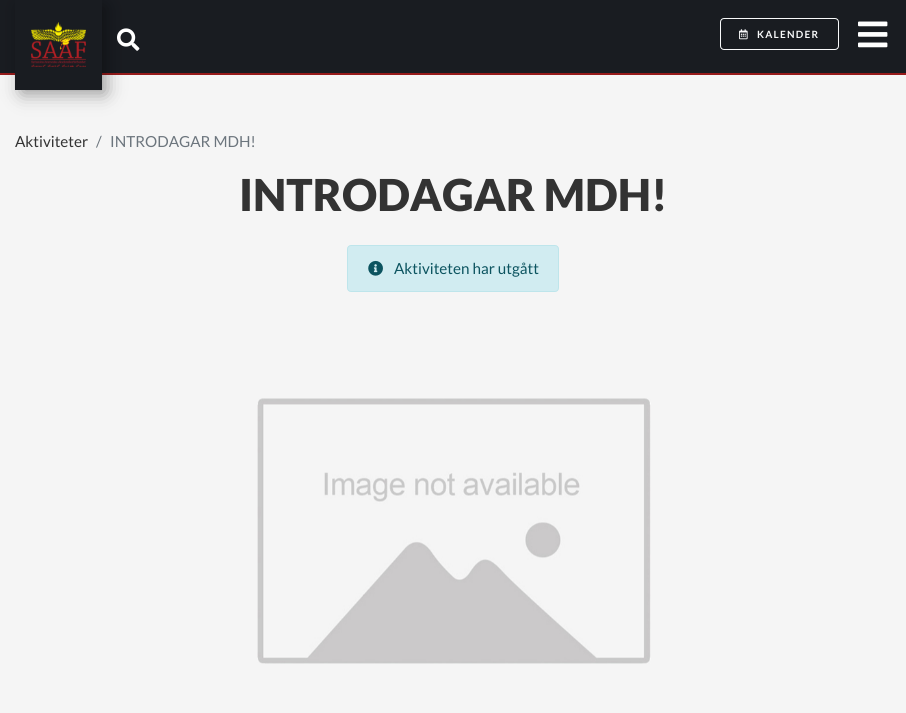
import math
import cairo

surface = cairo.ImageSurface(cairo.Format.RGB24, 906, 713)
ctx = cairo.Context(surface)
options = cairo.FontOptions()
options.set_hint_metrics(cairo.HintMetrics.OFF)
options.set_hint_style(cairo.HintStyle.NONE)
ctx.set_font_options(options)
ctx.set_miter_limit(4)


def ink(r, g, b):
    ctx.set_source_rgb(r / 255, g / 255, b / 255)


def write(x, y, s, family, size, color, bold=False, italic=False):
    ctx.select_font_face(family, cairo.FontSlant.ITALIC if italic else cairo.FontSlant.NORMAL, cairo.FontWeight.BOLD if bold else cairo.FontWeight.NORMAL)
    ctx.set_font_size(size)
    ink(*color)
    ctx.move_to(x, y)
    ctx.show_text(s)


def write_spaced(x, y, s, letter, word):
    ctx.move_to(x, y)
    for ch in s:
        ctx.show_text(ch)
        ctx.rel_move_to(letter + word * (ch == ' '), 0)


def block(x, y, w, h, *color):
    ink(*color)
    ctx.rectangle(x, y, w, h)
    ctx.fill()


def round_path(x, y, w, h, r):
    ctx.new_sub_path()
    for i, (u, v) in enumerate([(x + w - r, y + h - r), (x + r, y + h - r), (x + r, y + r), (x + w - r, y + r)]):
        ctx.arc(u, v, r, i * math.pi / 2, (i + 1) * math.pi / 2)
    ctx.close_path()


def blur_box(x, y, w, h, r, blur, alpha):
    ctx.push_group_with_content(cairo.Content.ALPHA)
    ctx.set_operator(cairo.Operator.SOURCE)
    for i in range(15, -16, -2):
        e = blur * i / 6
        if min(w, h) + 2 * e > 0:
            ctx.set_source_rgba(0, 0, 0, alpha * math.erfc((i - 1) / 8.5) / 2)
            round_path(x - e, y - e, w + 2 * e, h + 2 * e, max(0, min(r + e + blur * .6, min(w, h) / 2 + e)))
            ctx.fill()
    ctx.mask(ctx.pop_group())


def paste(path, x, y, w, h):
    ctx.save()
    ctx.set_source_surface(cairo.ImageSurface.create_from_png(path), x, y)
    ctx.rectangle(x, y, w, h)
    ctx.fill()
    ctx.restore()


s1 = dict(family="Lato", size=15.25, color=(51, 51, 51))
s2 = dict(family="Lato", size=15.25, color=(108, 117, 125))
s3 = dict(family="Lato Black", size=44, color=(51, 51, 51))
s4 = dict(family="Lato", size=15.25, color=(12, 84, 96))

ink(245, 245, 245)
ctx.paint()
block(0, 0, 906, 73, 25, 28, 33)
block(0, 73, 906, 2, 151, 27, 27)
ink(0, 0, 0)
blur_box(22, 7, 83, 86, 0, 9.5, 0.41)
block(15, 0, 87, 90, 25, 28, 33)
paste("pic1.png", 31, 22, 55, 45)
paste("pic2.png", 117, 28, 23, 23)
round_path(720.5, 18.5, 118, 31, 3.5)
ink(248, 249, 250)
ctx.set_line_width(1)
ctx.stroke()
paste("pic3.png", 739, 29, 9, 11)
ctx.select_font_face("Lato", cairo.FontSlant.NORMAL, cairo.FontWeight.BOLD)
ctx.set_font_size(10)
write_spaced(757, 38, "KALENDER", 1.25, 0)
paste("pic4.png", 858, 21, 30, 27)
write(15, 147, "Aktiviteter", **s1)
write(96, 147, "/", **s2)
write(110, 147, "INTRODAGAR MDH!", **s2)
write(239, 211, "INTRODAGAR MDH!", **s3)
ink(209, 236, 241)
round_path(347.5, 245.5, 211, 46, 3.5)
ctx.fill_preserve()
ink(190, 229, 235)
ctx.stroke()
paste("pic5.png", 368, 260, 15, 16)
write(394, 274, "Aktiviteten har utgått", **s4)
paste("pic6.png", 257, 398, 394, 266)
surface.write_to_png("screenshot.png")
